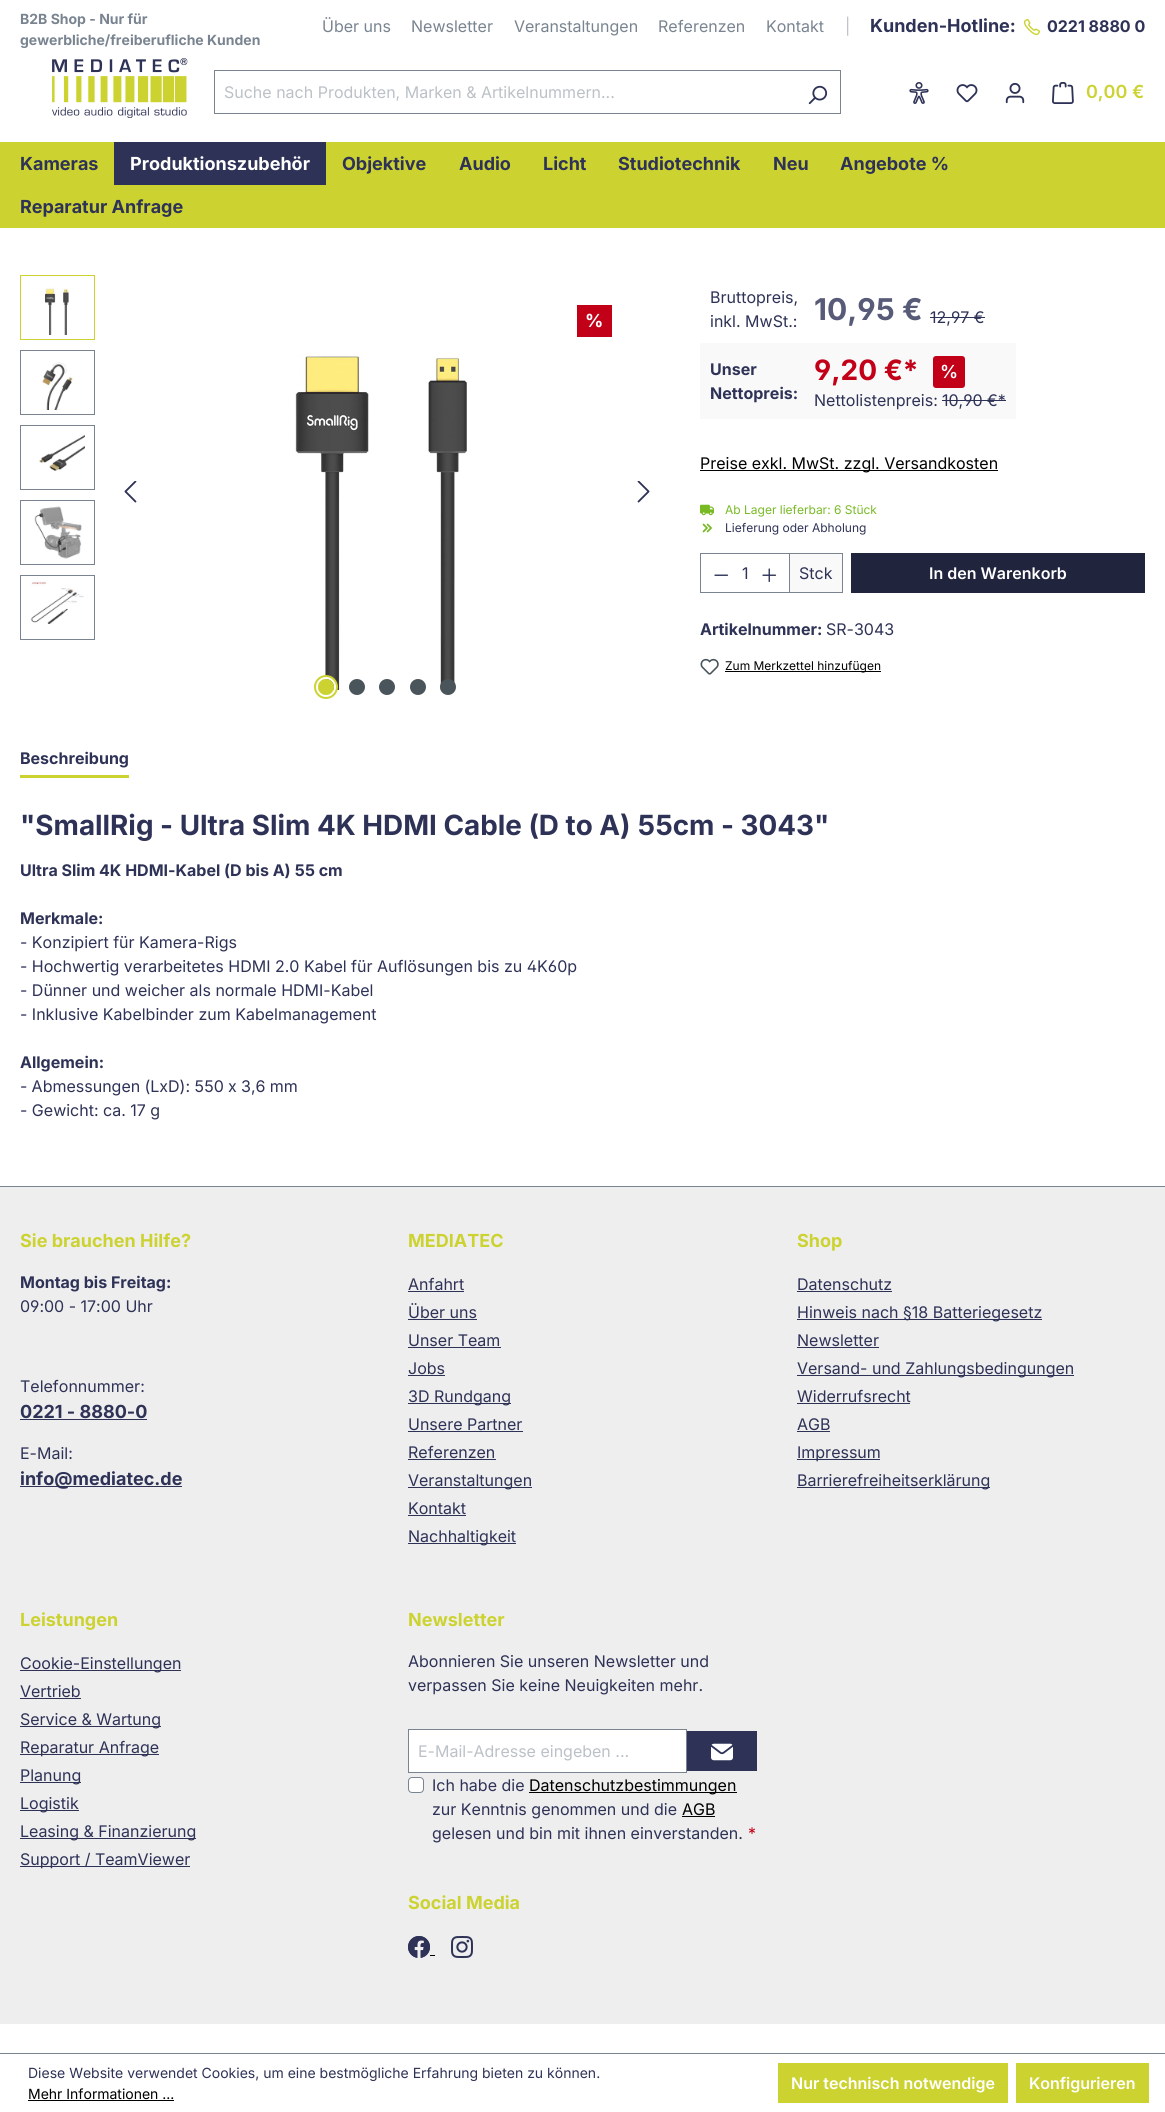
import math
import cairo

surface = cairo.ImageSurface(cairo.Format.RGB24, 1165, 2112)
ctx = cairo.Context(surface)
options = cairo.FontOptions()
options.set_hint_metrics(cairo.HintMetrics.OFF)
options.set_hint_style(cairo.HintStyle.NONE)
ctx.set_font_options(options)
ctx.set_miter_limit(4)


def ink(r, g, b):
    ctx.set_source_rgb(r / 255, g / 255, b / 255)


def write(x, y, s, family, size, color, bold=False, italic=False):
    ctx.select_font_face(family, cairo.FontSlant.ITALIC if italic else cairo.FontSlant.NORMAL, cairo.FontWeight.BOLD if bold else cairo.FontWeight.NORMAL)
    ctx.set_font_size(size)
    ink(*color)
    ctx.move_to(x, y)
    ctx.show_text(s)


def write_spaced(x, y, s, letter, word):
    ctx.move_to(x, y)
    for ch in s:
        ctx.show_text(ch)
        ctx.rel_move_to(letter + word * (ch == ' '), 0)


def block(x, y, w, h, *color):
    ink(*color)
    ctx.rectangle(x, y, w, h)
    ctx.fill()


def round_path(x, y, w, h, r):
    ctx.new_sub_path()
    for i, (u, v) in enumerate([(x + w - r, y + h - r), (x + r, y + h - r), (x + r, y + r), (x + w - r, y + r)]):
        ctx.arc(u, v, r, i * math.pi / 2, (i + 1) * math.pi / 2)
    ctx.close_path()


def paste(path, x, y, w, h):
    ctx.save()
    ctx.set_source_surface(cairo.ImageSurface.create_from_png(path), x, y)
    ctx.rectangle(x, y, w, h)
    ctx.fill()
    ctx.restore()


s1 = dict(family="Inter", size=14, color=(121, 132, 144), bold=True)
s2 = dict(family="Inter", size=16, color=(121, 132, 144))
s3 = dict(family="Inter", size=16, color=(188, 193, 199))
s4 = dict(family="Inter", size=18, color=(46, 50, 86), bold=True)
s5 = dict(family="Inter", size=16, color=(46, 50, 86), bold=True)
s6 = dict(family="Inter SemiBold", size=18, color=(204, 211, 49))
s7 = dict(family="Inter", size=18, color=(255, 255, 255), bold=True)
s8 = dict(family="Inter", size=16, color=(46, 50, 86))
s9 = dict(family="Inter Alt", size=30, color=(88, 91, 120), bold=True)
s10 = dict(family="Inter Alt", size=16, color=(46, 50, 86))
s11 = dict(family="Inter Alt", size=28, color=(194, 0, 23), bold=True)
s12 = dict(family="Inter SemiBold", size=18, color=(255, 255, 255))
s13 = dict(family="Inter", size=16, color=(0, 0, 0))
s14 = dict(family="Inter", size=12, color=(120, 186, 36))
s15 = dict(family="Inter", size=12, color=(46, 50, 86))
s16 = dict(family="Inter SemiBold", size=16, color=(255, 255, 255))
s17 = dict(family="Inter", size=12, color=(0, 0, 0))
s18 = dict(family="Inter", size=27.8, color=(46, 50, 86), bold=True)
s19 = dict(family="Inter", size=18, color=(204, 211, 49), bold=True)
s20 = dict(family="Inter", size=16, color=(194, 0, 23))
s21 = dict(family="Inter", size=14, color=(46, 50, 86))
s22 = dict(family="Inter", size=14, color=(0, 0, 0))

ink(255, 255, 255)
ctx.paint()
write(20, 24, "B2B Shop - Nur für", **s1)
write(20, 45, "gewerbliche/freiberufliche Kunden", **s1)
write(322, 32, "Über uns", **s2)
write(411, 32, "Newsletter", **s2)
write(514, 32, "Veranstaltungen", **s2)
write(658, 32, "Referenzen", **s2)
write(766, 32, "Kontakt", **s2)
write(845, 32, "|", **s3)
write(870, 32, "Kunden-Hotline:", **s4)
paste("pic1.png", 1023, 18, 18, 18)
write(1047, 32, "0221 8880 0", **s5)
paste("pic2.png", 52, 58, 136, 60)
block(214, 70, 627, 1, 121, 132, 144)
block(214, 113, 581, 1, 121, 132, 144)
block(214, 70, 1, 44, 121, 132, 144)
write(224, 98, "Suche nach Produkten, Marken & Artikelnummern...", **s3)
block(840, 70, 1, 44, 121, 132, 144)
block(794, 113, 47, 1, 121, 132, 144)
paste("pic3.png", 808, 85, 20, 20)
paste("pic4.png", 909, 82, 20, 22)
paste("pic5.png", 956, 84, 22, 19)
paste("pic6.png", 1005, 82, 20, 22)
paste("pic7.png", 1052, 82, 22, 22)
write(1086, 98, "0,00 €", **s6)
block(0, 142, 1165, 86, 204, 211, 49)
write(20, 170, "Kameras", **s4)
block(114, 142, 212, 43, 46, 50, 86)
write(130, 170, "Produktionszubehör", **s7)
write(342, 170, "Objektive", **s4)
write(459, 170, "Audio", **s4)
write(543, 170, "Licht", **s4)
write(618, 170, "Studiotechnik", **s4)
write(773, 170, "Neu", **s4)
write(840, 170, "Angebote %", **s4)
write(20, 213, "Reparatur Anfrage", **s4)
ctx.rectangle(20.5, 275.5, 74, 64)
ink(204, 211, 49)
ctx.set_line_width(1)
ctx.stroke()
paste("pic8.png", 45, 287, 24, 48)
ctx.rectangle(20.5, 350.5, 74, 64)
ink(121, 132, 144)
ctx.stroke()
paste("pic9.png", 42, 362, 31, 48)
ctx.rectangle(20.5, 425.5, 74, 64)
ctx.stroke()
paste("pic10.png", 39, 434, 46, 37)
ctx.rectangle(20.5, 500.5, 74, 64)
ctx.stroke()
paste("pic11.png", 34, 506, 48, 53)
ctx.rectangle(20.5, 575.5, 74, 64)
ctx.stroke()
paste("pic12.png", 30, 581, 54, 43)
paste("pic13.png", 295, 354, 172, 336)
paste("pic14.png", 124, 481, 13, 22)
paste("pic15.png", 637, 481, 13, 22)
ctx.arc(326, 687, 10, 0, 2 * math.pi)
ink(204, 211, 49)
ctx.set_line_width(4)
ctx.stroke()
ctx.arc(326, 687, 9, 0, 2 * math.pi)
ink(255, 255, 255)
ctx.set_line_width(2)
ctx.stroke()
ink(204, 211, 49)
ctx.arc(326, 687, 8, 0, 2 * math.pi)
ctx.fill()
ink(74, 84, 91)
ctx.arc(357, 687, 8, 0, 2 * math.pi)
ctx.fill()
ctx.arc(387, 687, 8, 0, 2 * math.pi)
ctx.fill()
ctx.arc(418, 687, 8, 0, 2 * math.pi)
ctx.fill()
ctx.arc(448, 687, 8, 0, 2 * math.pi)
ctx.fill()
block(577, 305, 35, 32, 194, 0, 23)
write(585, 327, "%", **s7)
write(710, 303, "Bruttopreis,", **s8)
write(710, 327, "inkl. MwSt.:", **s8)
write(814, 320, "10,95 €", **s9)
write(930, 323, "12,97 €", **s10)
block(930, 317, 55, 1, 46, 50, 86)
block(700, 343, 316, 76, 249, 249, 249)
write(710, 375, "Unser", **s5)
write(710, 399, "Nettopreis:", **s5)
write(814, 380, "9,20 €*", **s11)
round_path(933, 356, 32, 32, 3)
ctx.fill()
write(940, 378, "%", **s12)
write(814, 406, "Nettolistenpreis:", **s8)
write(942, 406, "10,90 €*", **s10)
block(942, 400, 64, 1, 46, 50, 86)
block(700, 470, 298, 1, 0, 0, 0)
write(700, 469, "Preise exkl. MwSt. zzgl. Versandkosten", **s13)
paste("pic16.png", 700, 504, 14, 12)
write(725, 514, "Ab Lager lieferbar: 6 Stück", **s14)
paste("pic17.png", 702, 523, 10, 10)
write(725, 532, "Lieferung oder Abholung", **s15)
ink(249, 249, 249)
ctx.rectangle(789.5, 553.5, 53, 39)
ctx.fill_preserve()
ink(121, 132, 144)
ctx.set_line_width(1)
ctx.stroke()
block(700, 553, 90, 1, 121, 132, 144)
block(700, 592, 90, 1, 121, 132, 144)
block(700, 553, 1, 40, 121, 132, 144)
paste("pic18.png", 714, 574, 15, 2)
write(742, 579, "1", **s8)
paste("pic19.png", 762, 568, 15, 15)
write(799, 579, "Stck", **s8)
block(851, 553, 294, 40, 33, 36, 61)
write(929, 579, "In den Warenkorb", **s16)
write(700, 635, "Artikelnummer:", **s5)
write(826, 635, "SR-3043", **s8)
paste("pic20.png", 700, 658, 19, 17)
block(725, 671, 156, 1, 0, 0, 0)
write(725, 670, "Zum Merkzettel hinzufügen", **s17)
block(20, 775, 109, 3, 204, 211, 49)
write(20, 764, "Beschreibung", **s5)
write(20, 835, "\"SmallRig - Ultra Slim 4K HDMI Cable (D to A) 55cm - 3043\"", **s18)
write(20, 876, "Ultra Slim 4K HDMI-Kabel (D bis A) 55 cm", **s5)
write(20, 924, "Merkmale:", **s5)
write(20, 948, "- Konzipiert für Kamera-Rigs", **s8)
write(20, 972, "- Hochwertig verarbeitetes HDMI 2.0 Kabel für Auflösungen bis zu 4K60p", **s10)
write(20, 996, "- Dünner und weicher als normale HDMI-Kabel", **s8)
write(20, 1020, "- Inklusive Kabelbinder zum Kabelmanagement", **s8)
write(20, 1068, "Allgemein:", **s5)
ctx.select_font_face("Inter")
write_spaced(20, 1092, "- Abmessungen (LxD): 550 x 3,6 mm", 0, -0.25)
write(20, 1116, "- Gewicht: ca. 17 g", **s8)
block(0, 1187, 1165, 837, 238, 238, 238)
block(0, 1186, 1165, 1, 121, 132, 144)
write(20, 1247, "Sie brauchen Hilfe?", **s19)
write(20, 1288, "Montag bis Freitag:", **s5)
write(20, 1312, "09:00 - 17:00 Uhr", **s10)
write(20, 1392, "Telefonnummer:", **s8)
write(20, 1418, "0221 - 8880-0", **s4)
block(20, 1419, 127, 1, 46, 50, 86)
write(20, 1459, "E-Mail:", **s8)
block(20, 1486, 162, 1, 46, 50, 86)
write(20, 1485, "info@mediatec.de", **s4)
write(408, 1247, "MEDIATEC", **s19)
write(408, 1290, "Anfahrt", **s8)
block(408, 1291, 56, 1, 46, 50, 86)
write(408, 1318, "Über uns", **s8)
block(408, 1319, 69, 1, 46, 50, 86)
write(408, 1346, "Unser Team", **s8)
block(408, 1347, 93, 1, 46, 50, 86)
write(408, 1374, "Jobs", **s8)
block(408, 1375, 37, 1, 46, 50, 86)
block(408, 1403, 103, 1, 46, 50, 86)
write(408, 1402, "3D Rundgang", **s8)
write(408, 1430, "Unsere Partner", **s8)
block(408, 1431, 115, 1, 46, 50, 86)
write(408, 1458, "Referenzen", **s8)
block(408, 1459, 88, 1, 46, 50, 86)
block(408, 1487, 124, 1, 46, 50, 86)
write(408, 1486, "Veranstaltungen", **s8)
write(408, 1514, "Kontakt", **s8)
block(408, 1515, 58, 1, 46, 50, 86)
block(408, 1543, 108, 1, 46, 50, 86)
write(408, 1542, "Nachhaltigkeit", **s8)
write(797, 1247, "Shop", **s19)
write(797, 1290, "Datenschutz", **s8)
block(797, 1291, 95, 1, 46, 50, 86)
block(797, 1319, 245, 1, 46, 50, 86)
write(797, 1318, "Hinweis nach §18 Batteriegesetz", **s8)
write(797, 1346, "Newsletter", **s8)
block(797, 1347, 82, 1, 46, 50, 86)
block(797, 1375, 277, 1, 46, 50, 86)
write(797, 1374, "Versand- und Zahlungsbedingungen", **s8)
write(797, 1402, "Widerrufsrecht", **s8)
block(797, 1403, 113, 1, 46, 50, 86)
write(797, 1430, "AGB", **s8)
block(797, 1431, 33, 1, 46, 50, 86)
block(797, 1459, 83, 1, 46, 50, 86)
write(797, 1458, "Impressum", **s8)
block(797, 1487, 193, 1, 46, 50, 86)
write(797, 1486, "Barrierefreiheitserklärung", **s8)
write(20, 1626, "Leistungen", **s19)
block(20, 1670, 161, 1, 46, 50, 86)
write(20, 1669, "Cookie-Einstellungen", **s8)
write(20, 1697, "Vertrieb", **s8)
block(20, 1698, 61, 1, 46, 50, 86)
block(20, 1726, 141, 1, 46, 50, 86)
write(20, 1725, "Service & Wartung", **s8)
block(20, 1754, 139, 1, 46, 50, 86)
write(20, 1753, "Reparatur Anfrage", **s8)
block(20, 1782, 61, 1, 46, 50, 86)
write(20, 1781, "Planung", **s8)
block(20, 1810, 59, 1, 46, 50, 86)
write(20, 1809, "Logistik", **s8)
block(20, 1838, 176, 1, 46, 50, 86)
write(20, 1837, "Leasing & Finanzierung", **s8)
block(20, 1866, 170, 1, 46, 50, 86)
write(20, 1865, "Support / TeamViewer", **s8)
write(408, 1626, "Newsletter", **s19)
write(408, 1667, "Abonnieren Sie unseren Newsletter und", **s8)
write(408, 1691, "verpassen Sie keine Neuigkeiten mehr.", **s8)
ink(255, 255, 255)
ctx.rectangle(408.5, 1729.5, 278, 43)
ctx.fill_preserve()
ink(121, 132, 144)
ctx.stroke()
write(418, 1757, "E-Mail-Adresse eingeben ...", **s3)
block(687, 1731, 70, 40, 46, 50, 86)
paste("pic21.png", 711, 1743, 22, 18)
ink(255, 255, 255)
round_path(408.5, 1777.5, 15, 15, 3.5)
ctx.fill_preserve()
ink(121, 132, 144)
ctx.stroke()
write(432, 1791, "Ich habe die", **s8)
block(529, 1792, 208, 1, 0, 0, 0)
write(529, 1791, "Datenschutzbestimmungen", **s13)
write(432, 1815, "zur Kenntnis genommen und die", **s8)
write(682, 1815, "AGB", **s13)
block(682, 1816, 33, 1, 0, 0, 0)
write(432, 1839, "gelesen und bin mit ihnen einverstanden.", **s8)
write(748, 1839, "*", **s20)
write(408, 1909, "Social Media", **s19)
paste("pic22.png", 408, 1936, 22, 22)
block(430, 1955, 5, 1, 0, 0, 0)
paste("pic23.png", 451, 1936, 22, 22)
block(0, 2053, 1165, 1, 121, 132, 144)
write(28, 2078, "Diese Website verwendet Cookies, um eine bestmögliche Erfahrung bieten zu können.", **s21)
write(28, 2099, "Mehr Informationen ...", **s22)
block(28, 2100, 146, 1, 0, 0, 0)
block(778, 2063, 230, 40, 204, 211, 49)
write(791, 2089, "Nur technisch notwendige", **s16)
block(1016, 2063, 133, 40, 204, 211, 49)
write(1029, 2089, "Konfigurieren", **s16)
surface.write_to_png("screenshot.png")
